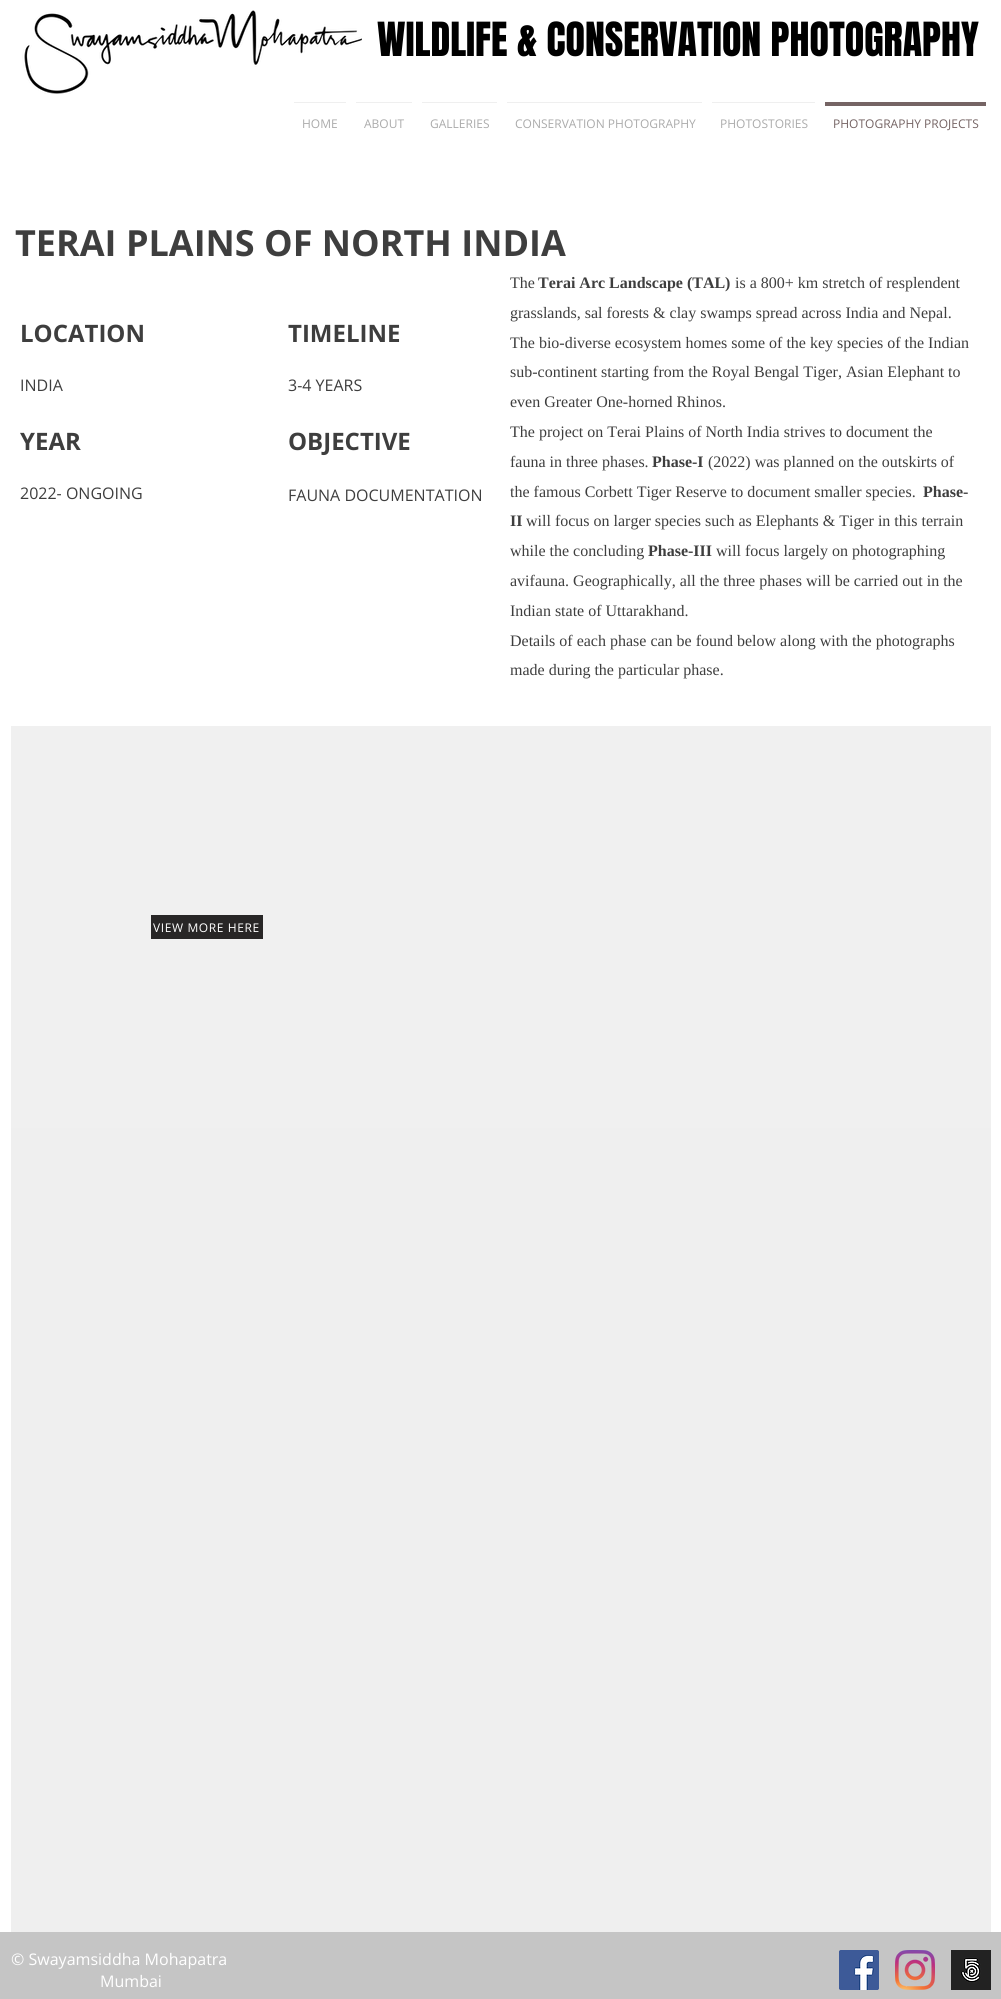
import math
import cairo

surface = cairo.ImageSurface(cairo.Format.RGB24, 1001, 1999)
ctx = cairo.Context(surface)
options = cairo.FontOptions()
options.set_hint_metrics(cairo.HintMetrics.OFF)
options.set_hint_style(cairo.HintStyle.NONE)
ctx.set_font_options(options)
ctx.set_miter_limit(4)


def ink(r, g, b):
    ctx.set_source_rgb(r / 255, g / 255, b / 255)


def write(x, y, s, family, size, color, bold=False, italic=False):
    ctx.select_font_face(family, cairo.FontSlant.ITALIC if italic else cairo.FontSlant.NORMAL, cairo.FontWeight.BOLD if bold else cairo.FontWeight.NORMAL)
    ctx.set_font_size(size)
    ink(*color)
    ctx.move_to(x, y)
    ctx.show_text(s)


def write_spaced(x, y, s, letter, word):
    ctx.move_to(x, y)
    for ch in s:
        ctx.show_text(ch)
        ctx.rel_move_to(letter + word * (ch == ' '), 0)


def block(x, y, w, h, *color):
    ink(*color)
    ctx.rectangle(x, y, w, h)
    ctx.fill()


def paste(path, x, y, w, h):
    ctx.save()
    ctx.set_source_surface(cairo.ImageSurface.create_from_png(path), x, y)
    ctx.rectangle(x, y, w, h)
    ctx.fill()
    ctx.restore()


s1 = dict(family="Anton", size=40, color=(0, 0, 0))
s2 = dict(family="Open Sans", size=12, color=(171, 171, 171))
s3 = dict(family="Open Sans", size=12, color=(117, 100, 100))
s4 = dict(family="Open Sans", size=36, color=(62, 62, 62), bold=True)
s5 = dict(family="Open Sans", size=24, color=(62, 62, 62), bold=True)
s6 = dict(family="Open Sans", size=16, color=(62, 62, 62))
s7 = dict(family="Liberation Serif", size=16, color=(62, 62, 62))
s8 = dict(family="Liberation Serif", size=16, color=(62, 62, 62), bold=True)
s9 = dict(family="Open Sans", size=16, color=(255, 255, 255))

ink(255, 255, 255)
ctx.paint()
paste("pic1.png", 22, 10, 340, 84)
write(377, 56, "WILDLIFE & CONSERVATION PHOTOGRAPHY", **s1)
block(294, 102, 52, 1, 239, 239, 239)
write(302, 128, "HOME", **s2)
block(356, 102, 56, 1, 239, 239, 239)
write(364, 128, "ABOUT", **s2)
block(422, 102, 75, 1, 239, 239, 239)
write(430, 128, "GALLERIES", **s2)
block(507, 102, 195, 1, 239, 239, 239)
write(515, 128, "CONSERVATION PHOTOGRAPHY", **s2)
block(712, 102, 103, 1, 239, 239, 239)
write(720, 128, "PHOTOSTORIES", **s2)
block(825, 102, 161, 4, 117, 100, 100)
write(833, 128, "PHOTOGRAPHY PROJECTS", **s3)
write(15, 256, "TERAI PLAINS OF NORTH INDIA", **s4)
write(20, 342, "LOCATION", **s5)
write(288, 342, "TIMELINE", **s5)
write(20, 391, "INDIA", **s6)
write(288, 391, "3-4 YEARS", **s6)
write(20, 450, "YEAR", **s5)
write(288, 450, "OBJECTIVE", **s5)
write(20, 499, "2022- ONGOING", **s6)
write(288, 501, "FAUNA DOCUMENTATION", **s6)
write(510, 288, "The", **s7)
write(538, 288, "Terai Arc Landscape (TAL)", **s8)
write(735, 288, "is a 800+ km stretch of resplendent", **s7)
write(510, 318, "grasslands, sal forests & clay swamps spread across India and Nepal.", **s7)
write(510, 348, "The bio-diverse ecosystem homes some of the key species of the Indian", **s7)
write(510, 377, "sub-continent starting from the Royal Bengal Tiger, Asian Elephant to", **s7)
write(510, 407, "even Greater One-horned Rhinos.", **s7)
write(510, 437, "The project on Terai Plains of North India strives to document the", **s7)
write(510, 467, "fauna in three phases.", **s7)
write(652, 467, "Phase-I", **s8)
write(708, 467, "(2022) was planned on the outskirts of", **s7)
write(510, 497, "the famous Corbett Tiger Reserve to document smaller species.", **s7)
write(923, 497, "Phase-", **s8)
write(510, 526, "II", **s8)
write(526, 526, "will focus on larger species such as Elephants & Tiger in this terrain", **s7)
write(510, 556, "while the concluding", **s7)
write(648, 556, "Phase-III", **s8)
write(716, 556, "will focus largely on photographing", **s7)
write(510, 586, "avifauna. Geographically, all the three phases will be carried out in the", **s7)
write(510, 616, "Indian state of Uttarakhand.", **s7)
write(510, 646, "Details of each phase can be found below along with the photographs", **s7)
write(510, 675, "made during the particular phase.", **s7)
block(11, 726, 980, 402, 240, 240, 240)
block(151, 915, 112, 24, 40, 38, 38)
ctx.select_font_face("Open Sans")
ctx.set_font_size(12)
ink(255, 255, 255)
write_spaced(153, 932, "VIEW MORE HERE", 0.6, 0)
block(11, 1128, 980, 804, 239, 239, 239)
block(0, 1932, 1001, 67, 197, 197, 197)
write(11, 1965, "© Swayamsiddha Mohapatra", **s9)
write(100, 1987, "Mumbai", **s9)
paste("pic2.png", 839, 1950, 40, 40)
paste("pic3.png", 895, 1950, 40, 40)
paste("pic4.png", 951, 1950, 40, 40)
surface.write_to_png("screenshot.png")
